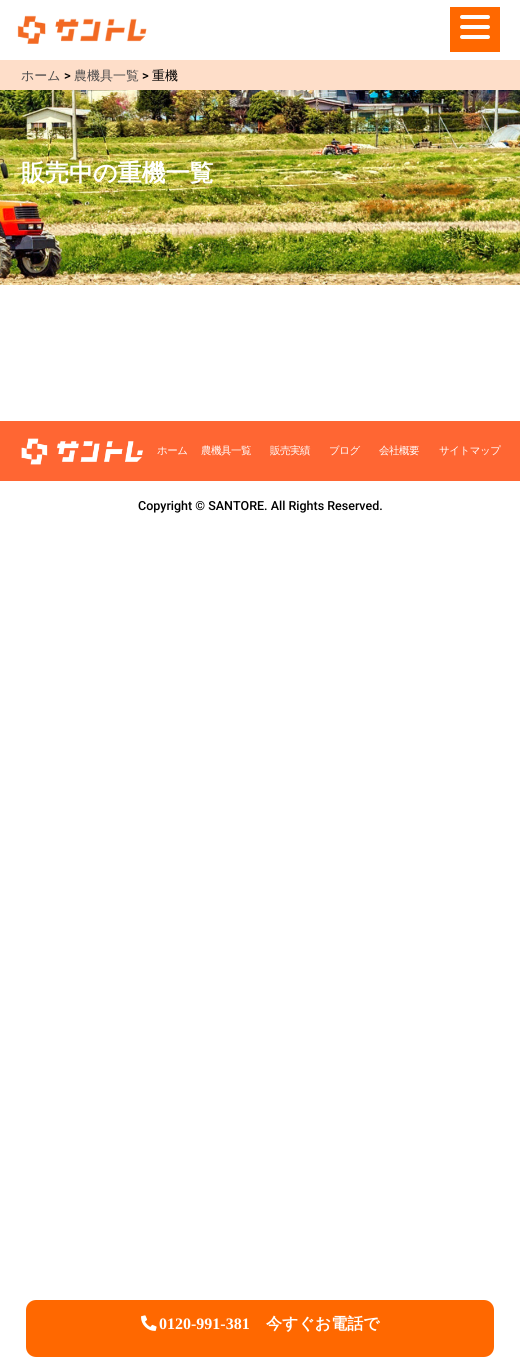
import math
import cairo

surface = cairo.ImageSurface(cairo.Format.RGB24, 520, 1362)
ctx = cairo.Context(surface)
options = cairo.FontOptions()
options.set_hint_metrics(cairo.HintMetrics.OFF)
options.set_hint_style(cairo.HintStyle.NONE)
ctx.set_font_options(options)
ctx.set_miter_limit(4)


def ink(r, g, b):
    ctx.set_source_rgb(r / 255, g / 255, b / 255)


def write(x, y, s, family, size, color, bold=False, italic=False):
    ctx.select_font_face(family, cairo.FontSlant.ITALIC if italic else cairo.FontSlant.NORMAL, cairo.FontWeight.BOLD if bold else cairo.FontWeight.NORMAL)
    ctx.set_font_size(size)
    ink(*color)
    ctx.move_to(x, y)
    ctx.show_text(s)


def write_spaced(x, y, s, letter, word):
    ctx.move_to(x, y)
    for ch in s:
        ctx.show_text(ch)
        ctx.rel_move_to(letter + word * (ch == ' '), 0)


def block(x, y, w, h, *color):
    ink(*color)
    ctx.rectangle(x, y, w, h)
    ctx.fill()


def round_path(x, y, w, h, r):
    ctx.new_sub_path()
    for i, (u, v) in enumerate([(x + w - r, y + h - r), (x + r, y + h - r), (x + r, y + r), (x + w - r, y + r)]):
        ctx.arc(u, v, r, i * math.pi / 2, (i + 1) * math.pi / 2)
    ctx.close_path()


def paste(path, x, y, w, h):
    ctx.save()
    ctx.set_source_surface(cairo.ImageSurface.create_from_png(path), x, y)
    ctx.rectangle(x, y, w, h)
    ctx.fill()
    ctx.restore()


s1 = dict(family="WenQuanYi Zen Hei Medium", size=13, color=(76, 75, 75))
s2 = dict(family="Roboto Medium", size=13, color=(0, 0, 0))
s3 = dict(family="WenQuanYi Zen Hei Medium", size=13, color=(0, 0, 0))
s4 = dict(family="WenQuanYi Zen Hei", size=24, color=(255, 255, 255), bold=True)
s5 = dict(family="Roboto Medium", size=12.5, color=(0, 0, 0))
s6 = dict(family="Liberation Serif", size=16, color=(255, 255, 255), bold=True)
s7 = dict(family="WenQuanYi Zen Hei", size=16, color=(255, 255, 255), bold=True)

ink(255, 255, 255)
ctx.paint()
paste("pic1.png", 17, 15, 130, 29)
block(450, 7, 50, 45, 255, 104, 0)
ink(255, 255, 255)
round_path(460, 15, 30, 4, 2)
ctx.fill()
round_path(460, 25, 30, 4, 2)
ctx.fill()
round_path(460, 35, 30, 4, 2)
ctx.fill()
block(0, 60, 520, 30, 254, 222, 201)
write(21, 80, "ホーム", **s1)
write(64, 80, ">", **s2)
write(74, 80, "農機具一覧", **s1)
write(142, 80, ">", **s2)
write(152, 80, "重機", **s3)
paste("pic2.png", 0, 90, 520, 195)
write(21, 181, "販売中の重機一覧", **s4)
block(0, 421, 520, 60, 255, 102, 51)
paste("pic3.png", 21, 438, 122, 27)
ctx.select_font_face("WenQuanYi Zen Hei Medium")
ctx.set_font_size(10.5)
ink(255, 255, 255)
write_spaced(157, 454, "ホーム", -0.5, 0)
write_spaced(201, 454, "農機具一覧", -0.5, 0)
write_spaced(270, 454, "販売実績", -0.5, 0)
write_spaced(329, 454, "ブログ", -0.5, 0)
write_spaced(379, 454, "会社概要", -0.5, 0)
write_spaced(439, 454, "サイトマップ", -0.5, 0)
write(138, 510, "Copyright © SANTORE. All Rights Reserved.", **s5)
ink(255, 104, 0)
round_path(26, 1300, 468, 57, 10)
ctx.fill()
paste("pic4.png", 141, 1315, 16, 16)
write(159, 1329, "0120-991-381", **s6)
write(266, 1329, "今すぐお電話で", **s7)
surface.write_to_png("screenshot.png")
